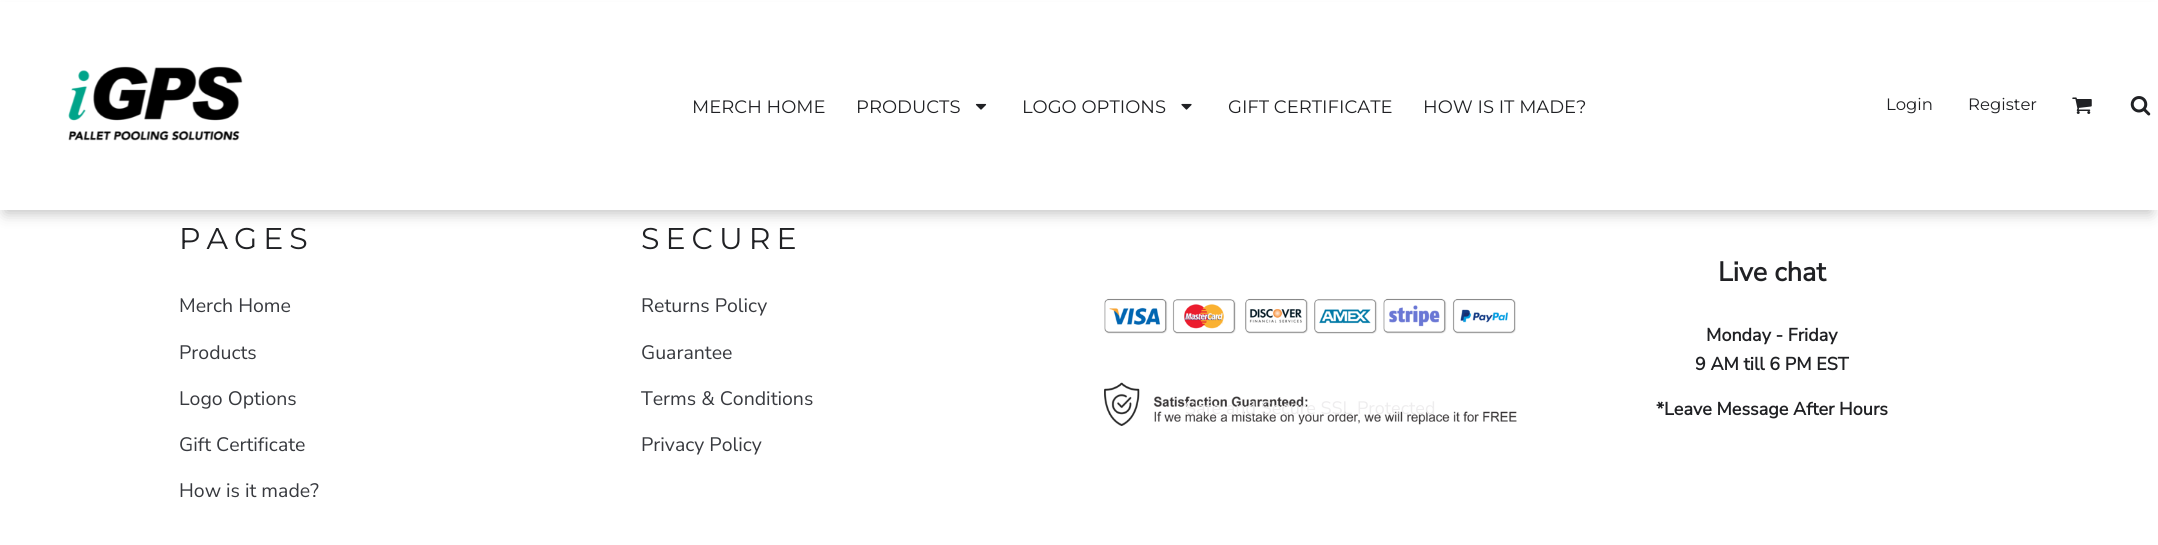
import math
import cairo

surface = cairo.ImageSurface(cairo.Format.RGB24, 2158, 545)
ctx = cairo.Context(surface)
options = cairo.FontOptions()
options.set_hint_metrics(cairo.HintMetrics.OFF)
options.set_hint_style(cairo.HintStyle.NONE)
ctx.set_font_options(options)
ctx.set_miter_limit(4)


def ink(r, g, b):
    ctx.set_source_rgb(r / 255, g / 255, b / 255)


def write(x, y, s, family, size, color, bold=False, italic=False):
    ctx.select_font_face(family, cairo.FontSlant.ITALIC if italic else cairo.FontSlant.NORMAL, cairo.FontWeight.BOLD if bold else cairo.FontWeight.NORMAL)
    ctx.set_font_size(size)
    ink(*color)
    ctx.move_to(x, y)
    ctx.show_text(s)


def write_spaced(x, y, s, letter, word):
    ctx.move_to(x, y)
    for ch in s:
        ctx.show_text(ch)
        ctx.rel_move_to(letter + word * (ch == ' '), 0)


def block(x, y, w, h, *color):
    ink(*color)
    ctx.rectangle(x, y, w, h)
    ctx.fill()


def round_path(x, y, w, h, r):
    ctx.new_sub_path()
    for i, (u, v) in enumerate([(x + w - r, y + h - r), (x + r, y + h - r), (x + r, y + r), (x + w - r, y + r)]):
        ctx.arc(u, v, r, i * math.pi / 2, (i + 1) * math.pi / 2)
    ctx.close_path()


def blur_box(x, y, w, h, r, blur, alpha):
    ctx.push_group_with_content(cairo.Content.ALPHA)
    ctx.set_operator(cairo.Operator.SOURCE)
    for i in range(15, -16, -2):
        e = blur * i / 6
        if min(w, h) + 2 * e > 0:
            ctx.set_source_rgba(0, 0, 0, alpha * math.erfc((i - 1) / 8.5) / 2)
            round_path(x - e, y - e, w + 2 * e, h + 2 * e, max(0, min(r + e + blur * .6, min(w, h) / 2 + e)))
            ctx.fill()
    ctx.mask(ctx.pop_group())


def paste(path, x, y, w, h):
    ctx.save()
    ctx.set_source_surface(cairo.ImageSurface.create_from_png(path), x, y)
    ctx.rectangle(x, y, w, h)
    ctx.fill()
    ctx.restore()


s1 = dict(family="Montserrat Thin", size=18, color=(32, 33, 36))
s2 = dict(family="Montserrat Thin", size=16.5, color=(32, 33, 36))
s3 = dict(family="Nunito Sans ExtraLight", size=19.5, color=(56, 58, 63))
s4 = dict(family="Nunito Sans ExtraLight", size=18, color=(238, 237, 238))
s5 = dict(family="Nunito Sans", size=27, color=(32, 33, 36), bold=True)
s6 = dict(family="Nunito Sans", size=18, color=(32, 33, 36), bold=True)

ink(255, 255, 255)
ctx.paint()
ink(0, 0, 0)
blur_box(5, 15, 2146, 198, 0, 7.5, 0.25)
block(0, 2, 2158, 208, 255, 255, 255)
paste("pic1.png", 68, 66, 175, 75)
write(692, 113, "MERCH HOME", **s1)
write(856, 113, "PRODUCTS", **s1)
paste("pic2.png", 975, 103, 12, 7)
write(1022, 113, "LOGO OPTIONS", **s1)
paste("pic3.png", 1181, 103, 11, 7)
write(1228, 113, "GIFT CERTIFICATE", **s1)
write(1423, 113, "HOW IS IT MADE?", **s1)
write(1886, 110, "Login", **s2)
write(1968, 110, "Register", **s2)
paste("pic4.png", 2072, 97, 20, 17)
paste("pic5.png", 2130, 96, 21, 20)
ctx.set_font_size(30)
write_spaced(179, 249, "PAGES", 6, 0)
write(179, 312, "Merch Home", **s3)
write(179, 359, "Products", **s3)
write(179, 405, "Logo Options", **s3)
write(179, 451, "Gift Certificate", **s3)
write(179, 497, "How is it made?", **s3)
ctx.select_font_face("Montserrat Thin")
ctx.set_font_size(30)
ink(32, 33, 36)
write_spaced(641, 249, "SECURE", 6, 0)
write(641, 312, "Returns Policy", **s3)
write(641, 359, "Guarantee", **s3)
write(641, 405, "Terms & Conditions", **s3)
write(641, 451, "Privacy Policy", **s3)
paste("pic6.png", 1104, 382, 413, 44)
paste("pic7.png", 1104, 298, 412, 36)
write(1185, 414, "Safe and Secure SSL Protected", **s4)
write(1718, 281, "Live chat", **s5)
write(1706, 341, "Monday - Friday", **s6)
write(1695, 370, "9 AM till 6 PM EST", **s6)
write(1656, 415, "*Leave Message After Hours", **s6)
surface.write_to_png("screenshot.png")
